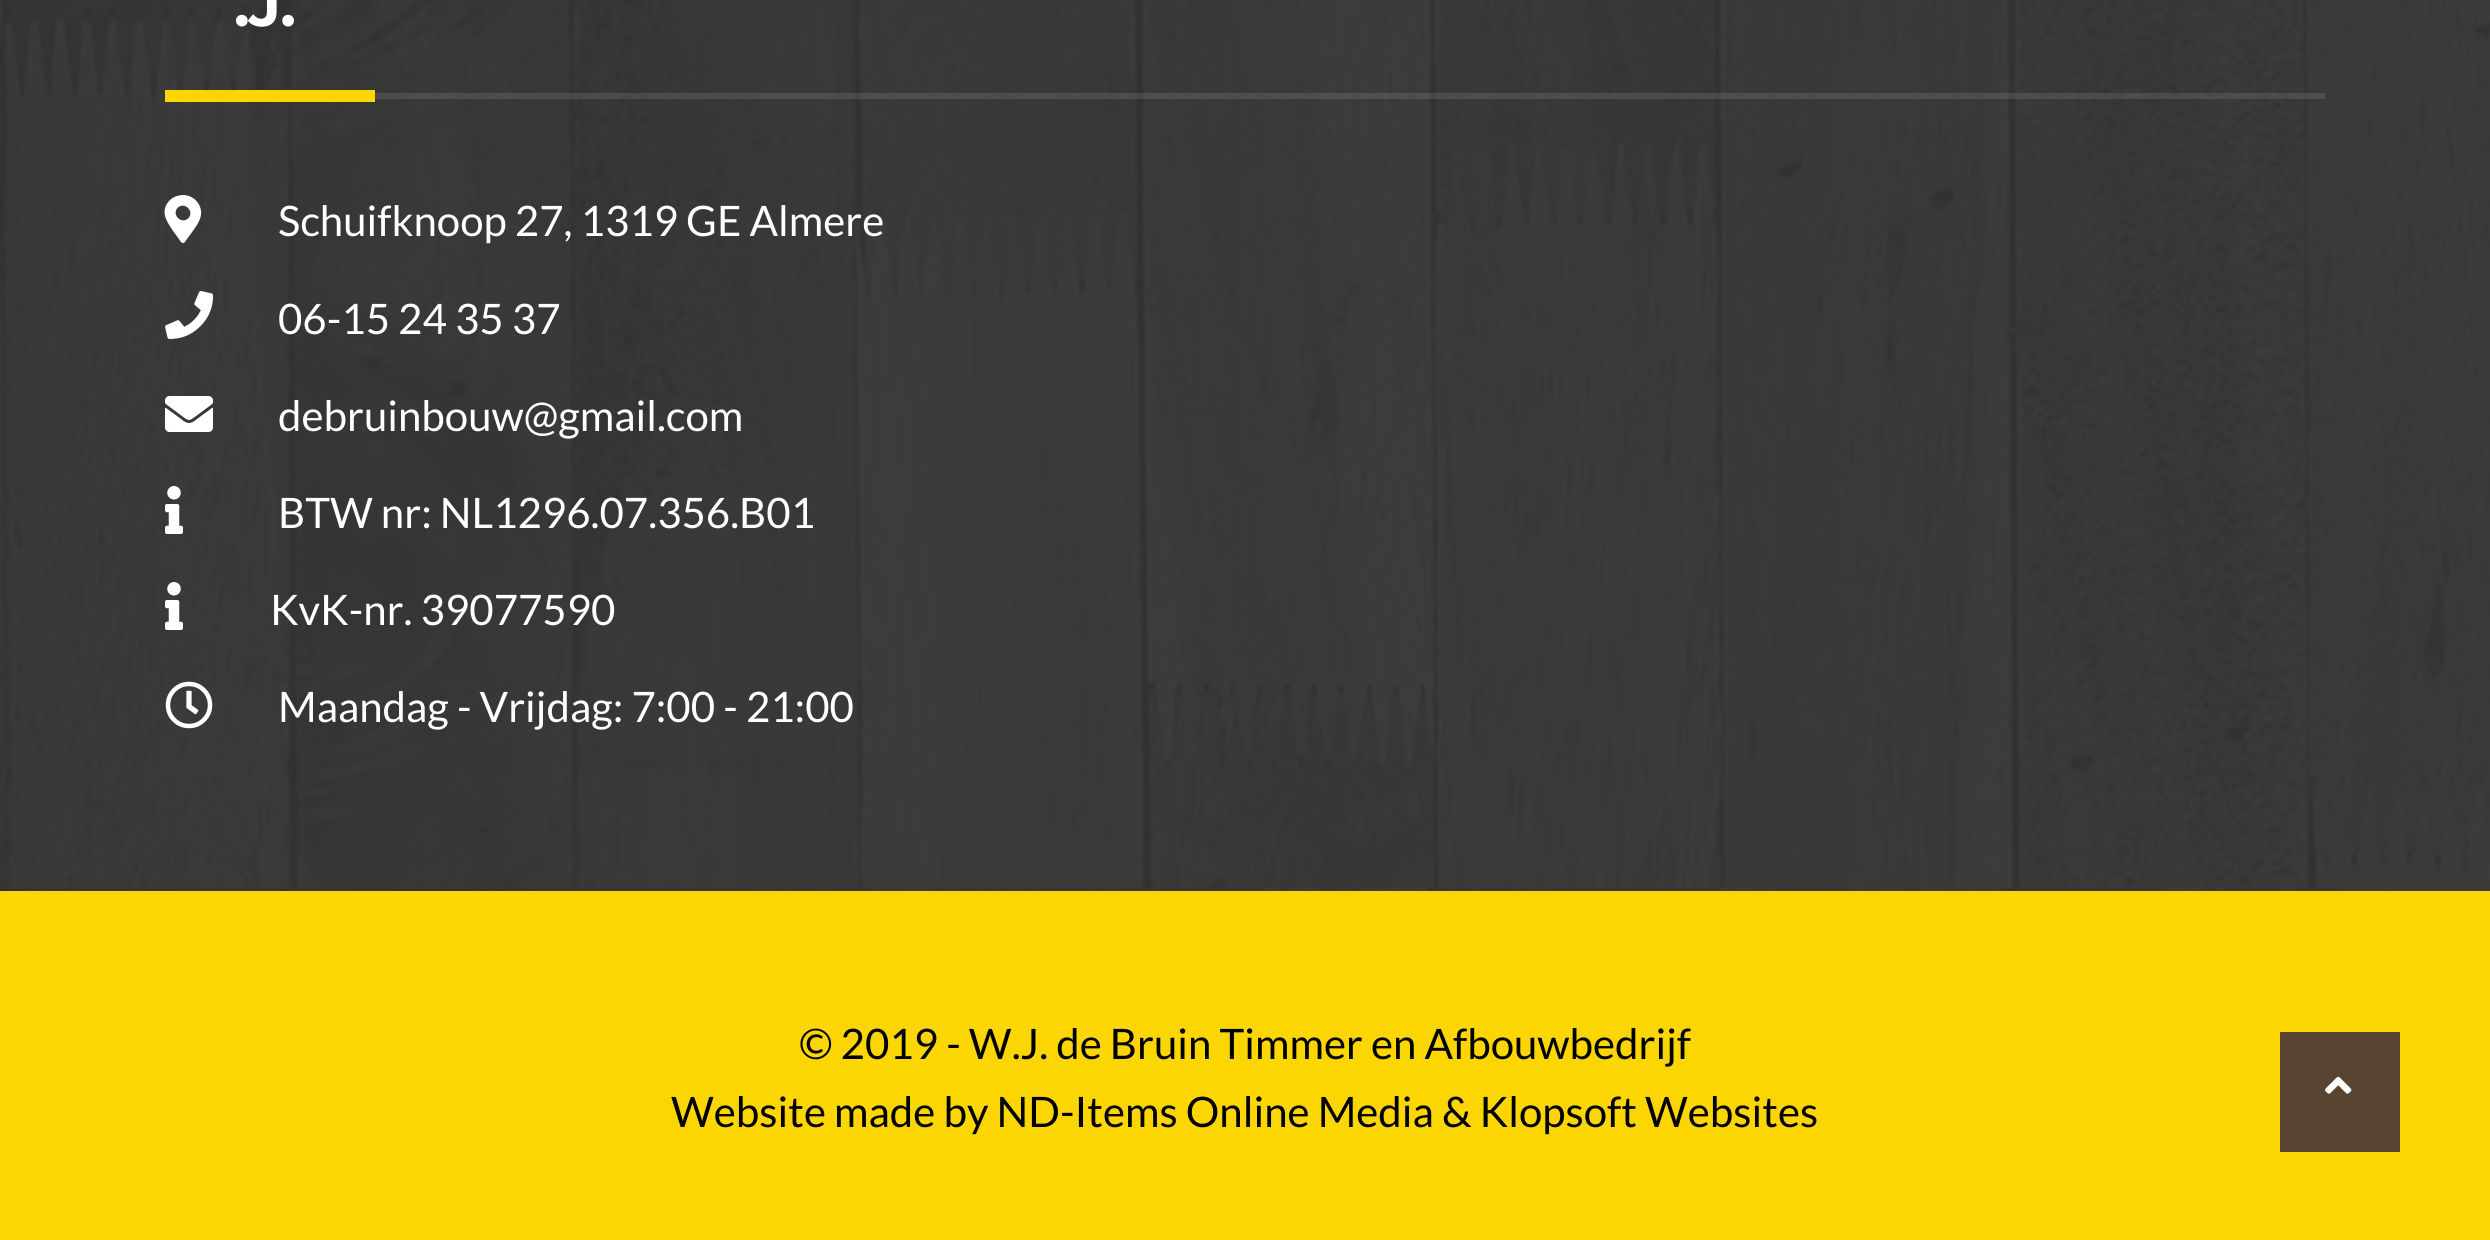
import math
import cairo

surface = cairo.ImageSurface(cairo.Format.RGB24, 2490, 1240)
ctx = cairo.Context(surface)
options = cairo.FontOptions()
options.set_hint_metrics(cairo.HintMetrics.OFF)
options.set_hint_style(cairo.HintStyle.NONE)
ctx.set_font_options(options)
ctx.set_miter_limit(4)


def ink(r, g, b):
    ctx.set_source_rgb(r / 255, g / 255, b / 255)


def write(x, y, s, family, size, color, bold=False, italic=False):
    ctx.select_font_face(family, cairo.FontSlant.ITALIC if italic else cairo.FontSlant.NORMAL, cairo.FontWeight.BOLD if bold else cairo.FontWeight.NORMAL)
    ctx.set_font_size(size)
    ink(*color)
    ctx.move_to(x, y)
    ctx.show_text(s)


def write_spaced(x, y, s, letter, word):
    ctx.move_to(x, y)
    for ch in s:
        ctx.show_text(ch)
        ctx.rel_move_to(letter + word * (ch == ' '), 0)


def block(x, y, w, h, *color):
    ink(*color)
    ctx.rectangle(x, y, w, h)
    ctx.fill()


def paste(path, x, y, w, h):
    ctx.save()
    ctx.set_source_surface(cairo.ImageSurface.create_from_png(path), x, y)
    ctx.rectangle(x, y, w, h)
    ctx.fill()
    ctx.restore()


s1 = dict(family="Lato", size=42, color=(255, 255, 255))
s2 = dict(family="Lato", size=42, color=(0, 0, 0))

ink(251, 214, 3)
ctx.paint()
paste("pic1.png", 0, 0, 2490, 891)
ctx.select_font_face("Montserrat", cairo.FontSlant.NORMAL, cairo.FontWeight.BOLD)
ctx.set_font_size(60)
ink(255, 255, 255)
write_spaced(234, 26, ".J.", -1, 0)
block(165, 90, 210, 12, 251, 214, 3)
ctx.set_source_rgba(1, 1, 1, 0.1)
ctx.rectangle(375, 93, 1950, 6)
ctx.fill()
ink(255, 255, 255)
ctx.new_path()
ctx.move_to(181, 242)
ctx.curve_to(177, 236, 167, 224, 165, 216)
ctx.curve_to(161, 197, 187, 187, 198, 203)
ctx.curve_to(206, 215, 197, 225, 190, 235)
ctx.line_to(184, 243)
ctx.curve_to(183, 243, 182, 243, 181, 242)
ctx.close_path()
ctx.move_to(178, 218)
ctx.curve_to(185, 225, 195, 215, 188, 208)
ctx.curve_to(181, 201, 171, 211, 178, 218)
ctx.close_path()
ctx.fill()
write(278, 236, "Schuifknoop 27, 1319 GE Almere", **s1)
paste("pic2.png", 165, 291, 49, 48)
write(278, 334, "06-15 24 35 37", **s1)
paste("pic3.png", 165, 396, 48, 36)
write(278, 431, "debruinbouw@gmail.com", **s1)
paste("pic4.png", 165, 486, 18, 48)
write(278, 528, "BTW nr: NL1296.07.356.B01", **s1)
paste("pic5.png", 165, 582, 18, 48)
write(270, 625, "KvK-nr. 39077590", **s1)
paste("pic6.png", 165, 681, 48, 48)
write(278, 722, "Maandag - Vrijdag: 7:00 - 21:00", **s1)
write(799, 1059, "© 2019 - W.J. de Bruin Timmer en Afbouwbedrijf", **s2)
write(671, 1127, "Website made by ND-Items Online Media & Klopsoft Websites", **s2)
block(2280, 1032, 120, 120, 89, 68, 49)
paste("pic7.png", 2325, 1076, 27, 18)
surface.write_to_png("screenshot.png")
